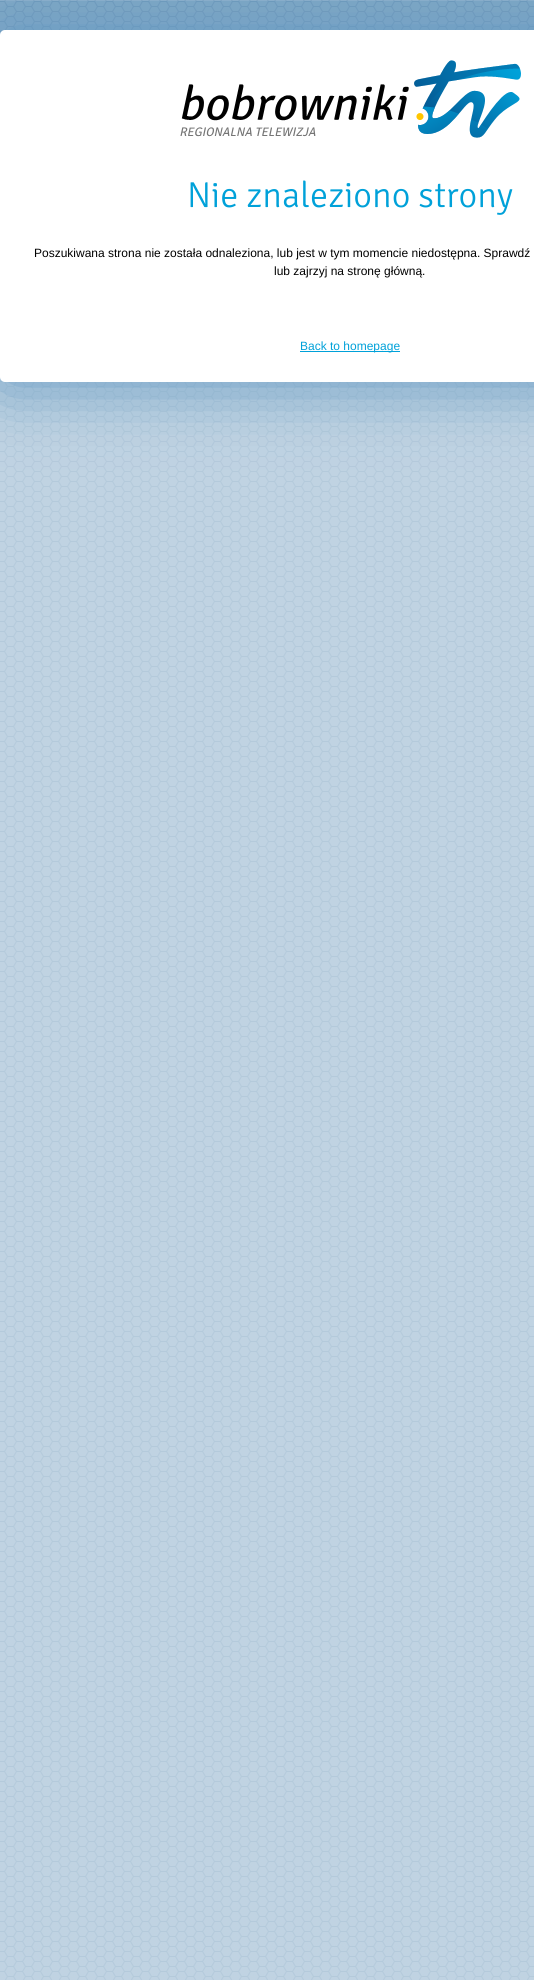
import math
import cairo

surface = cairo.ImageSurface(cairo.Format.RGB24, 534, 1980)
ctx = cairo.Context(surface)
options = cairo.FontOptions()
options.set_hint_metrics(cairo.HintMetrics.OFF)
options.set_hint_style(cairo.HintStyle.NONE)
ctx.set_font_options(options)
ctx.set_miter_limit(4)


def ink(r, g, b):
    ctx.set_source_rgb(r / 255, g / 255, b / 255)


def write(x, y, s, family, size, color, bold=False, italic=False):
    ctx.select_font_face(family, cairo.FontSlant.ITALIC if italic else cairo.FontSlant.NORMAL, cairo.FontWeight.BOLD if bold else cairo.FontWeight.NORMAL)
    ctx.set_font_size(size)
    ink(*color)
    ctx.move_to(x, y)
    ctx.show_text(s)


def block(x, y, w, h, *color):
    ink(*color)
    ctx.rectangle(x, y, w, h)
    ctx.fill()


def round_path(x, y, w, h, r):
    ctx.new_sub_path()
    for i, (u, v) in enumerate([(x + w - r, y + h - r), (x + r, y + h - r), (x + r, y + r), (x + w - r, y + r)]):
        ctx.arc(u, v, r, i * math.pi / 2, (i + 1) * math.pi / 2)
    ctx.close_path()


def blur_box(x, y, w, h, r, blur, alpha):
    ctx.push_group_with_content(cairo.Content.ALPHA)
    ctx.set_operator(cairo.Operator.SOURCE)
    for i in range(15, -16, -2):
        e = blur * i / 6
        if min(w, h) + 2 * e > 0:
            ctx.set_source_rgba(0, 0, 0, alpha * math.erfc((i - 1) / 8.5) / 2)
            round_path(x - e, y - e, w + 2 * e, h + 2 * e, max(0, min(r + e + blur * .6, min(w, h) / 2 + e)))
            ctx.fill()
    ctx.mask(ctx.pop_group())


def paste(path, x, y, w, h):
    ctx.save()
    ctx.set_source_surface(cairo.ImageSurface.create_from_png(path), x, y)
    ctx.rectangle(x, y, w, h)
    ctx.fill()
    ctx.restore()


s1 = dict(family="Signika Negative Light", size=36, color=(0, 161, 217))
s2 = dict(family="Liberation Sans", size=12, color=(0, 0, 0))
s3 = dict(family="Liberation Sans", size=12, color=(0, 161, 217))

ink(255, 255, 255)
ctx.paint()
paste("pic1.png", 0, 377, 534, 1603)
paste("pic2.png", 0, 0, 534, 35)
ink(97, 151, 193)
blur_box(0, 30, 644, 352, 5, 35, 1)
ink(255, 255, 255)
round_path(0, 30, 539, 352, 5)
ctx.fill()
paste("pic3.png", 180, 60, 341, 78)
write(187, 207, "Nie znaleziono strony", **s1)
write(34, 257, "Poszukiwana strona nie została odnaleziona, lub jest w tym momencie niedostępna. Sprawdź", **s2)
write(274, 275, "lub zajrzyj na stronę główną.", **s2)
block(300, 351, 100, 1, 0, 161, 217)
write(300, 350, "Back to homepage", **s3)
surface.write_to_png("screenshot.png")
